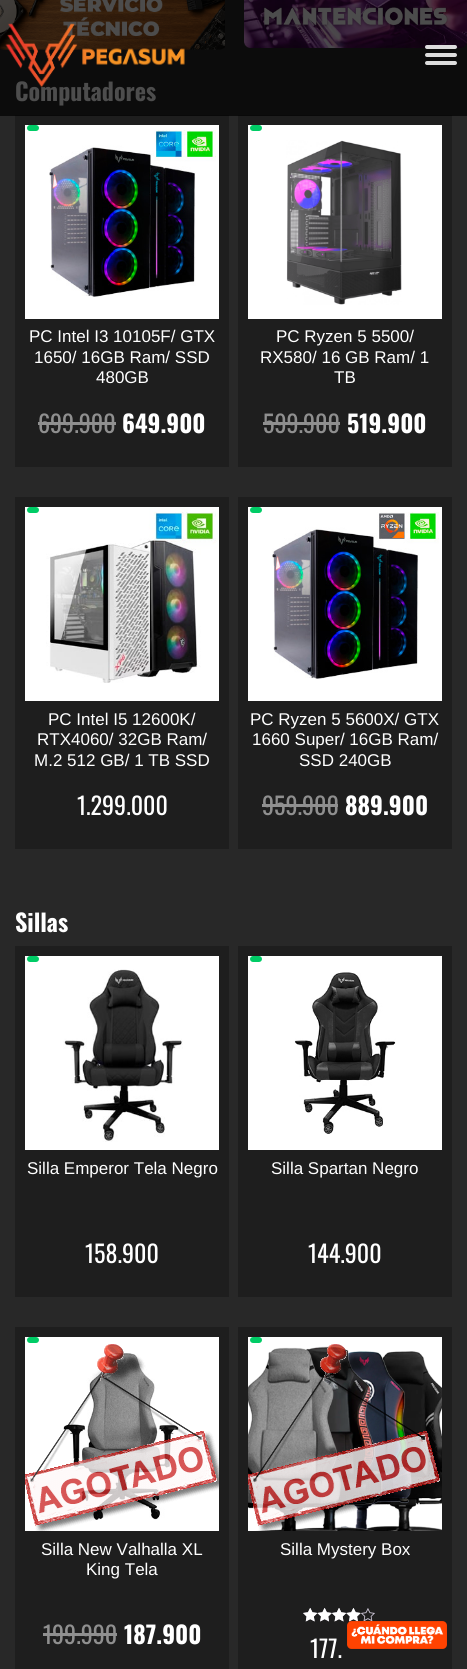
import math
import cairo

surface = cairo.ImageSurface(cairo.Format.RGB24, 467, 1669)
ctx = cairo.Context(surface)
options = cairo.FontOptions()
options.set_hint_metrics(cairo.HintMetrics.OFF)
options.set_hint_style(cairo.HintStyle.NONE)
ctx.set_font_options(options)
ctx.set_miter_limit(4)


def ink(r, g, b):
    ctx.set_source_rgb(r / 255, g / 255, b / 255)


def write(x, y, s, family, size, color, bold=False, italic=False):
    ctx.select_font_face(family, cairo.FontSlant.ITALIC if italic else cairo.FontSlant.NORMAL, cairo.FontWeight.BOLD if bold else cairo.FontWeight.NORMAL)
    ctx.set_font_size(size)
    ink(*color)
    ctx.move_to(x, y)
    ctx.show_text(s)


def block(x, y, w, h, *color):
    ink(*color)
    ctx.rectangle(x, y, w, h)
    ctx.fill()


def round_path(x, y, w, h, r):
    ctx.new_sub_path()
    for i, (u, v) in enumerate([(x + w - r, y + h - r), (x + r, y + h - r), (x + r, y + r), (x + w - r, y + r)]):
        ctx.arc(u, v, r, i * math.pi / 2, (i + 1) * math.pi / 2)
    ctx.close_path()


def paste(path, x, y, w, h):
    ctx.save()
    ctx.set_source_surface(cairo.ImageSurface.create_from_png(path), x, y)
    ctx.rectangle(x, y, w, h)
    ctx.fill()
    ctx.restore()


s1 = dict(family="Oswald", size=24, color=(77, 77, 77), bold=True)
s2 = dict(family="Liberation Sans", size=17, color=(255, 255, 255))
s3 = dict(family="Oswald", size=24, color=(143, 143, 143))
s4 = dict(family="Oswald", size=24, color=(255, 255, 255), bold=True)
s5 = dict(family="Oswald", size=24, color=(255, 255, 255))

ink(40, 40, 40)
ctx.paint()
block(0, 0, 467, 116, 12, 12, 12)
paste("pic2.png", 0, 0, 225, 50)
write(15, 101, "Computadores", **s1)
paste("pic1.png", 5, 23, 180, 65)
paste("pic3.png", 244, 0, 223, 48)
ink(221, 221, 221)
round_path(425, 45, 32, 4, 2)
ctx.fill()
round_path(425, 53, 32, 4, 2)
ctx.fill()
round_path(425, 61, 32, 4, 2)
ctx.fill()
block(15, 116, 214, 351, 30, 30, 30)
block(15, 115, 214, 1, 9, 9, 9)
block(25, 125, 194, 194, 255, 255, 255)
ink(0, 204, 102)
round_path(27, 125, 12, 6, 3)
ctx.fill()
paste("pic4.png", 49, 130, 167, 167)
write(29, 342, "PC Intel I3 10105F/ GTX", **s2)
write(34, 363, "1650/ 16GB Ram/ SSD", **s2)
write(96, 383, "480GB", **s2)
write(38, 433, "699.900", **s3)
block(38, 422, 78, 3, 143, 143, 143)
write(122, 433, "649.900", **s4)
block(238, 116, 214, 351, 30, 30, 30)
block(238, 115, 214, 1, 9, 9, 9)
block(248, 125, 194, 194, 255, 255, 255)
ink(0, 204, 102)
round_path(250, 125, 12, 6, 3)
ctx.fill()
paste("pic5.png", 286, 140, 116, 165)
write(276, 342, "PC Ryzen 5 5500/", **s2)
write(260, 363, "RX580/ 16 GB Ram/ 1", **s2)
write(334, 383, "TB", **s2)
write(263, 433, "599.900", **s3)
block(263, 422, 77, 3, 143, 143, 143)
write(347, 433, "519.900", **s4)
block(15, 497, 214, 352, 30, 30, 30)
block(25, 507, 194, 194, 255, 255, 255)
ink(0, 204, 102)
round_path(27, 507, 12, 6, 3)
ctx.fill()
paste("pic6.png", 46, 507, 173, 176)
write(48, 725, "PC Intel I5 12600K/", **s2)
write(37, 745, "RTX4060/ 32GB Ram/", **s2)
write(34, 766, "M.2 512 GB/ 1 TB SSD", **s2)
write(77, 815, "1.299.000", **s5)
block(238, 497, 214, 352, 30, 30, 30)
block(248, 507, 194, 194, 255, 255, 255)
ink(0, 204, 102)
round_path(250, 507, 12, 6, 3)
ctx.fill()
paste("pic7.png", 272, 512, 167, 167)
write(250, 725, "PC Ryzen 5 5600X/ GTX", **s2)
write(252, 745, "1660 Super/ 16GB Ram/", **s2)
write(299, 766, "SSD 240GB", **s2)
write(262, 815, "959.900", **s3)
block(262, 804, 76, 3, 143, 143, 143)
write(345, 815, "889.900", **s4)
write(15, 932, "Sillas", **s4)
block(15, 946, 214, 351, 30, 30, 30)
block(25, 956, 194, 194, 255, 255, 255)
ink(0, 204, 102)
round_path(27, 956, 12, 6, 3)
ctx.fill()
paste("pic8.png", 63, 969, 120, 173)
write(27, 1174, "Silla Emperor Tela Negro", **s2)
write(85, 1263, "158.900", **s5)
block(238, 946, 214, 351, 30, 30, 30)
block(248, 956, 194, 194, 255, 255, 255)
ink(0, 204, 102)
round_path(250, 956, 12, 6, 3)
ctx.fill()
paste("pic9.png", 294, 972, 102, 162)
write(271, 1174, "Silla Spartan Negro", **s2)
write(308, 1263, "144.900", **s5)
block(15, 1327, 214, 342, 30, 30, 30)
block(25, 1337, 194, 194, 255, 255, 255)
ink(0, 204, 102)
round_path(27, 1337, 12, 6, 3)
ctx.fill()
paste("pic10.png", 63, 1353, 116, 167)
paste("pic11.png", 25, 1344, 194, 187)
write(41, 1555, "Silla New Valhalla XL", **s2)
write(86, 1575, "King Tela", **s2)
write(43, 1644, "199.990", **s3)
block(43, 1633, 74, 3, 143, 143, 143)
write(124, 1644, "187.900", **s4)
block(238, 1327, 214, 342, 30, 30, 30)
block(248, 1337, 194, 9, 255, 255, 255)
ink(0, 204, 102)
round_path(250, 1337, 12, 6, 3)
ctx.fill()
paste("pic12.png", 248, 1346, 194, 185)
paste("pic13.png", 248, 1344, 194, 187)
write(280, 1555, "Silla Mystery Box", **s2)
paste("pic14.png", 303, 1608, 72, 14)
paste("pic15.png", 303, 1608, 58, 14)
block(310, 1621, 1, 1, 37, 37, 37)
write(310, 1658, "177.", **s5)
paste("pic16.png", 347, 1621, 100, 28)
surface.write_to_png("screenshot.png")
